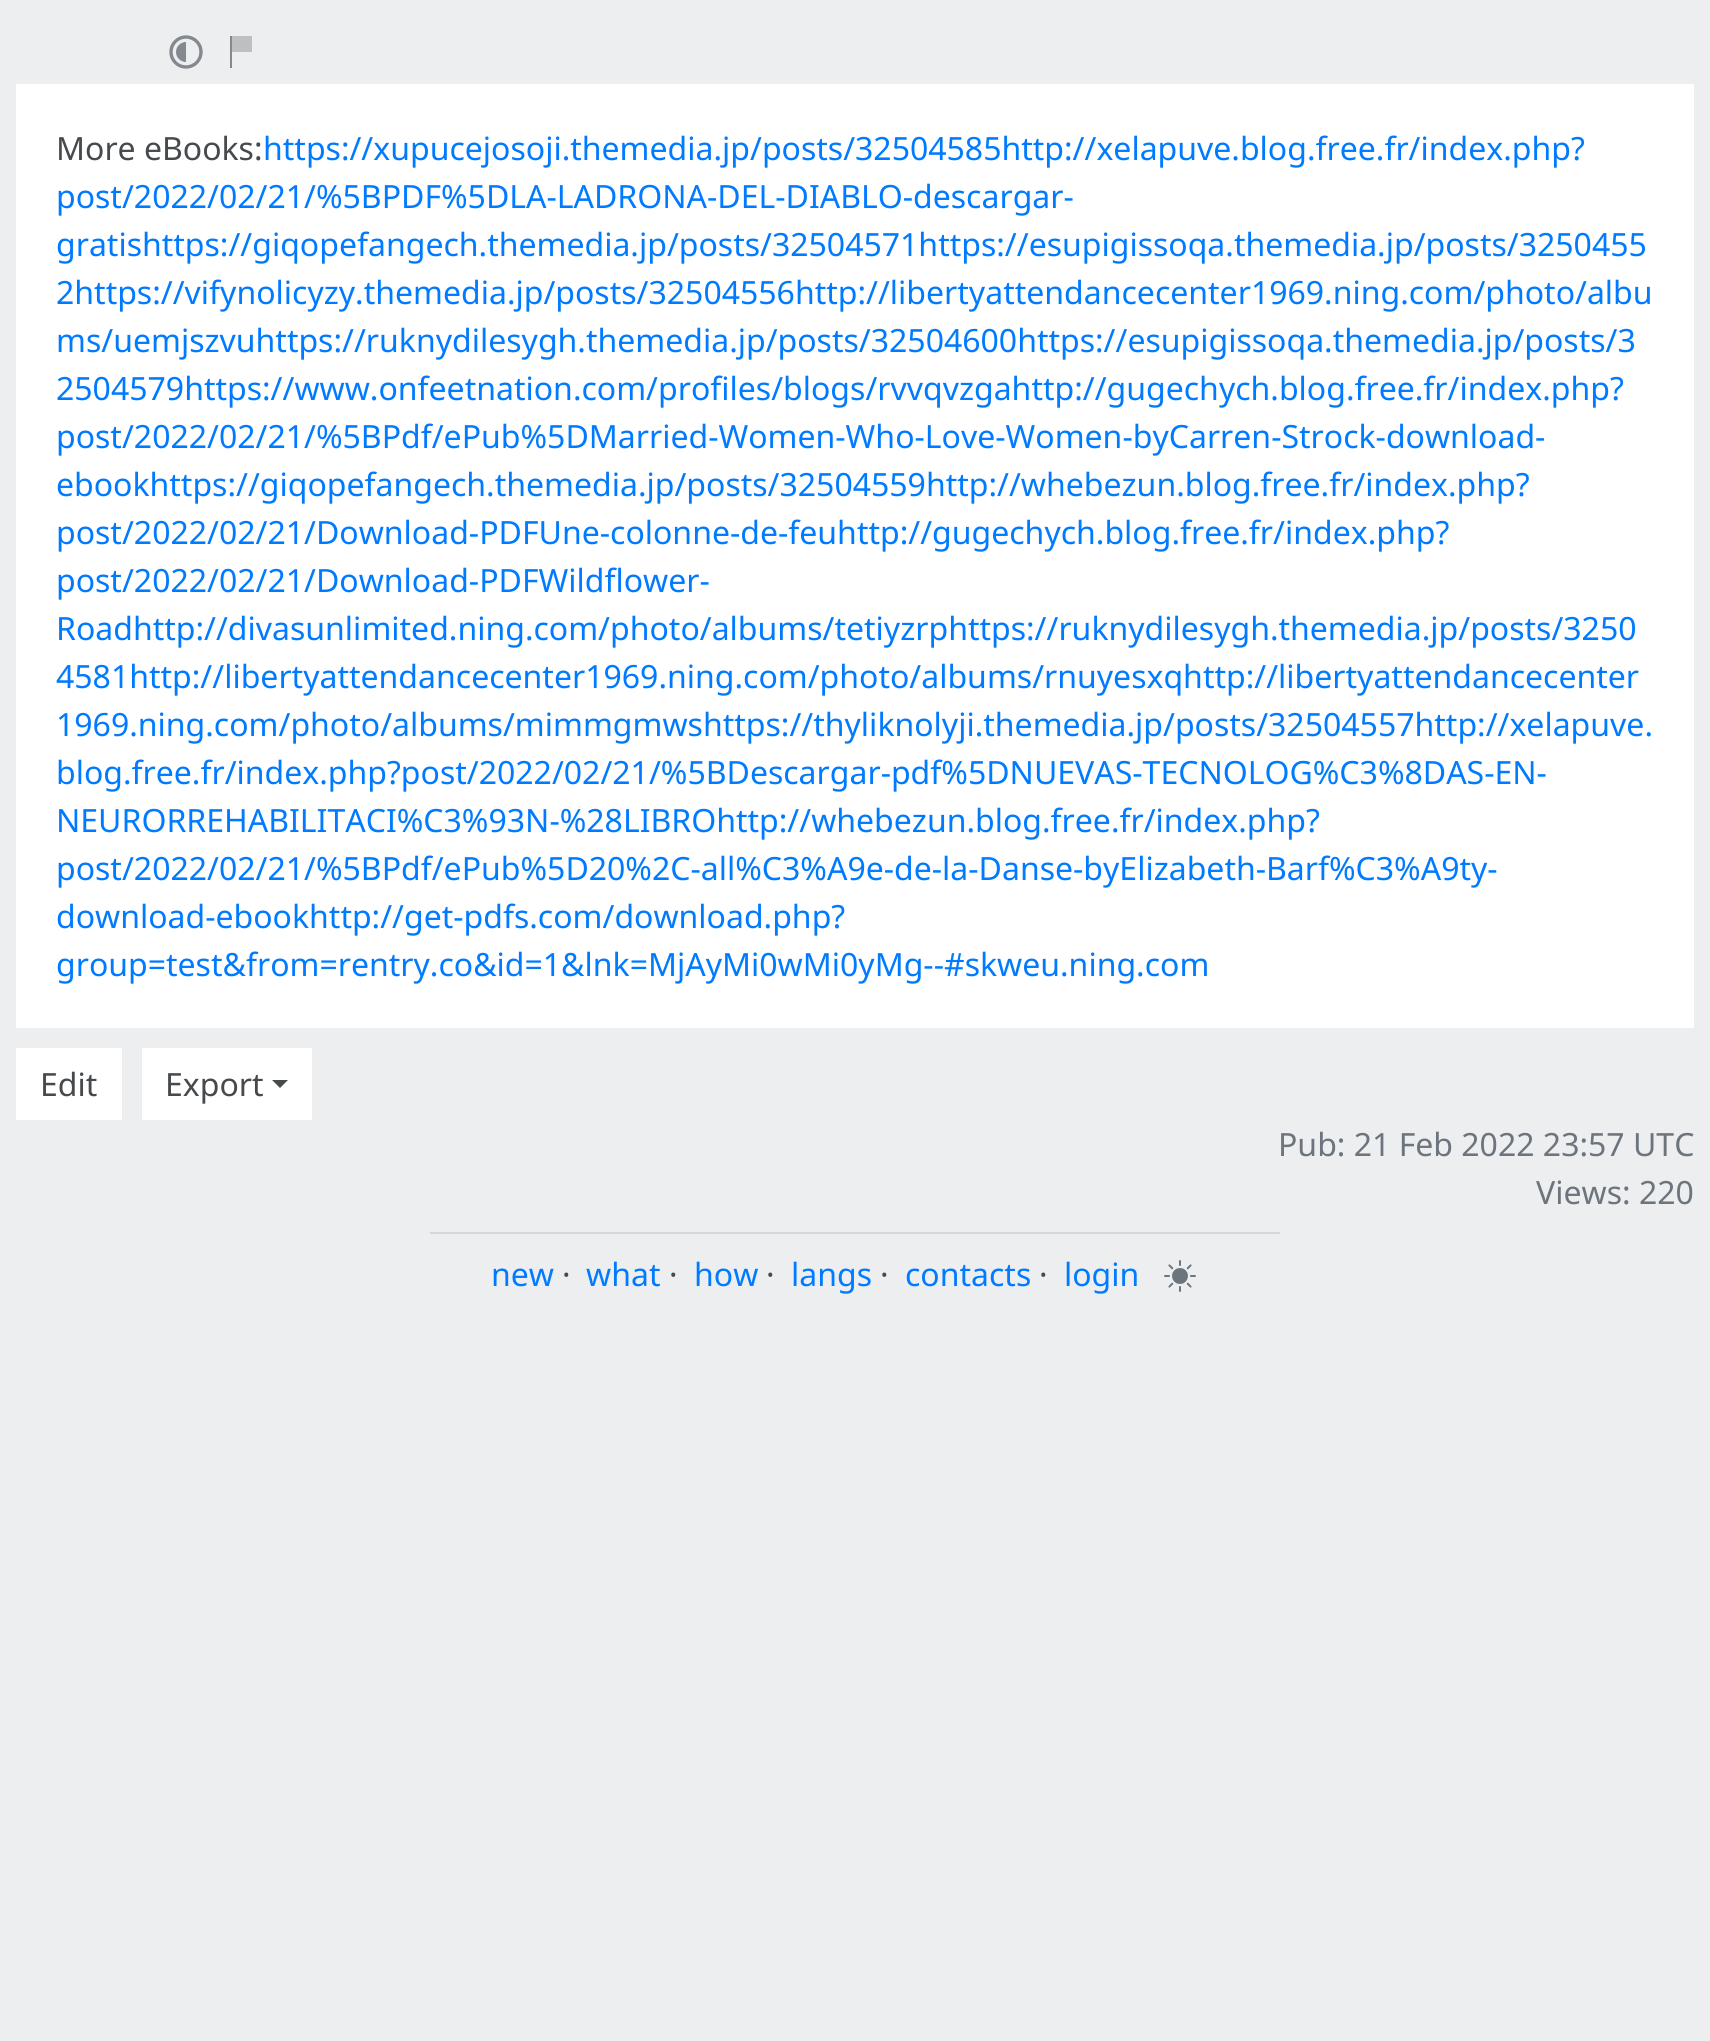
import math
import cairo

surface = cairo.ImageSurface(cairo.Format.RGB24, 1710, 2041)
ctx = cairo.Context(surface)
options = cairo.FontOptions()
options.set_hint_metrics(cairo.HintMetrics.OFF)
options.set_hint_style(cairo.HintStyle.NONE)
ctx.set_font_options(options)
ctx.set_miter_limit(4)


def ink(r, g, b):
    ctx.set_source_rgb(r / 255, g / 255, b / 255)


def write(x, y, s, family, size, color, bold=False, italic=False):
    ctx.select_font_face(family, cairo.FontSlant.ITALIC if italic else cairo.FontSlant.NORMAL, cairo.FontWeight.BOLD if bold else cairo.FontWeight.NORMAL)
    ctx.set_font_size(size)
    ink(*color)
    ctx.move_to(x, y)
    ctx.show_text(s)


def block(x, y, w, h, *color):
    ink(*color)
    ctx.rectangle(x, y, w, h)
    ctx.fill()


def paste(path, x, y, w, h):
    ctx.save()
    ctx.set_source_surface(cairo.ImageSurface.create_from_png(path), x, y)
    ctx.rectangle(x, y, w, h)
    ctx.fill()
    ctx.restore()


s1 = dict(family="Noto Sans", size=32, color=(70, 74, 76))
s2 = dict(family="Noto Sans", size=32, color=(0, 123, 255))
s3 = dict(family="Noto Sans", size=32, color=(108, 117, 125))

ink(237, 238, 240)
ctx.paint()
paste("pic1.png", 169, 35, 34, 34)
block(230, 36, 2, 32, 131, 137, 142)
block(232, 36, 20, 16, 189, 192, 194)
block(16, 84, 1678, 944, 255, 255, 255)
write(56, 160, "More eBooks:", **s1)
write(263, 160, "https://xupucejosoji.themedia.jp/posts/32504585http://xelapuve.blog.free.fr/index.php?", **s2)
write(56, 208, "post/2022/02/21/%5BPDF%5DLA-LADRONA-DEL-DIABLO-descargar-", **s2)
write(56, 256, "gratishttps://giqopefangech.themedia.jp/posts/32504571https://esupigissoqa.themedia.jp/posts/3250455", **s2)
write(56, 304, "2https://vifynolicyzy.themedia.jp/posts/32504556http://libertyattendancecenter1969.ning.com/photo/albu", **s2)
write(56, 352, "ms/uemjszvuhttps://ruknydilesygh.themedia.jp/posts/32504600https://esupigissoqa.themedia.jp/posts/3", **s2)
write(56, 400, "2504579https://www.onfeetnation.com/profiles/blogs/rvvqvzgahttp://gugechych.blog.free.fr/index.php?", **s2)
write(56, 448, "post/2022/02/21/%5BPdf/ePub%5DMarried-Women-Who-Love-Women-byCarren-Strock-download-", **s2)
write(56, 496, "ebookhttps://giqopefangech.themedia.jp/posts/32504559http://whebezun.blog.free.fr/index.php?", **s2)
write(56, 544, "post/2022/02/21/Download-PDFUne-colonne-de-feuhttp://gugechych.blog.free.fr/index.php?", **s2)
write(56, 592, "post/2022/02/21/Download-PDFWildflower-", **s2)
write(56, 640, "Roadhttp://divasunlimited.ning.com/photo/albums/tetiyzrphttps://ruknydilesygh.themedia.jp/posts/3250", **s2)
write(56, 688, "4581http://libertyattendancecenter1969.ning.com/photo/albums/rnuyesxqhttp://libertyattendancecenter", **s2)
write(56, 736, "1969.ning.com/photo/albums/mimmgmwshttps://thyliknolyji.themedia.jp/posts/32504557http://xelapuve.", **s2)
write(56, 784, "blog.free.fr/index.php?post/2022/02/21/%5BDescargar-pdf%5DNUEVAS-TECNOLOG%C3%8DAS-EN-", **s2)
write(56, 832, "NEURORREHABILITACI%C3%93N-%28LIBROhttp://whebezun.blog.free.fr/index.php?", **s2)
write(56, 880, "post/2022/02/21/%5BPdf/ePub%5D20%2C-all%C3%A9e-de-la-Danse-byElizabeth-Barf%C3%A9ty-", **s2)
write(56, 928, "download-ebookhttp://get-pdfs.com/download.php?", **s2)
write(56, 976, "group=test&from=rentry.co&id=1&lnk=MjAyMi0wMi0yMg--#skweu.ning.com", **s2)
block(16, 1048, 106, 72, 255, 255, 255)
write(40, 1096, "Edit", **s1)
block(142, 1048, 170, 72, 255, 255, 255)
write(165, 1096, "Export", **s1)
ctx.new_path()
ctx.move_to(272, 1080)
ctx.line_to(288, 1080)
ctx.line_to(280, 1088)
ctx.close_path()
ctx.fill()
write(1278, 1156, "Pub: 21 Feb 2022 23:57 UTC", **s3)
write(1536, 1204, "Views: 220", **s3)
block(430, 1232, 850, 2, 213, 214, 216)
write(491, 1286, "new", **s2)
write(562, 1286, "·", **s1)
write(586, 1286, "what", **s2)
write(669, 1286, "·", **s1)
write(694, 1286, "how", **s2)
write(766, 1286, "·", **s1)
write(791, 1286, "langs", **s2)
write(880, 1286, "·", **s1)
write(905, 1286, "contacts", **s2)
write(1039, 1286, "·", **s1)
write(1064, 1286, "login", **s2)
paste("pic2.png", 1164, 1260, 32, 32)
surface.write_to_png("screenshot.png")
